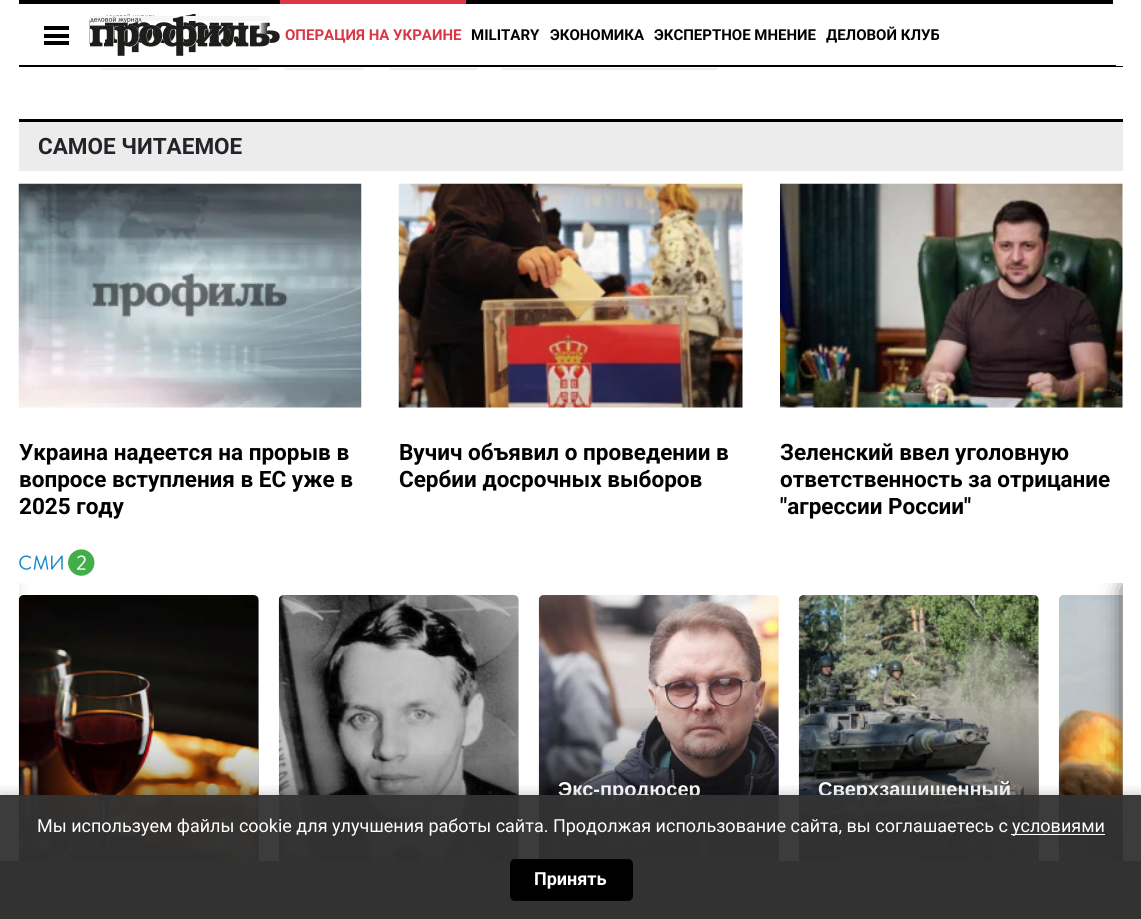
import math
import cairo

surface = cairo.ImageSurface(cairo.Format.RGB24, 1141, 919)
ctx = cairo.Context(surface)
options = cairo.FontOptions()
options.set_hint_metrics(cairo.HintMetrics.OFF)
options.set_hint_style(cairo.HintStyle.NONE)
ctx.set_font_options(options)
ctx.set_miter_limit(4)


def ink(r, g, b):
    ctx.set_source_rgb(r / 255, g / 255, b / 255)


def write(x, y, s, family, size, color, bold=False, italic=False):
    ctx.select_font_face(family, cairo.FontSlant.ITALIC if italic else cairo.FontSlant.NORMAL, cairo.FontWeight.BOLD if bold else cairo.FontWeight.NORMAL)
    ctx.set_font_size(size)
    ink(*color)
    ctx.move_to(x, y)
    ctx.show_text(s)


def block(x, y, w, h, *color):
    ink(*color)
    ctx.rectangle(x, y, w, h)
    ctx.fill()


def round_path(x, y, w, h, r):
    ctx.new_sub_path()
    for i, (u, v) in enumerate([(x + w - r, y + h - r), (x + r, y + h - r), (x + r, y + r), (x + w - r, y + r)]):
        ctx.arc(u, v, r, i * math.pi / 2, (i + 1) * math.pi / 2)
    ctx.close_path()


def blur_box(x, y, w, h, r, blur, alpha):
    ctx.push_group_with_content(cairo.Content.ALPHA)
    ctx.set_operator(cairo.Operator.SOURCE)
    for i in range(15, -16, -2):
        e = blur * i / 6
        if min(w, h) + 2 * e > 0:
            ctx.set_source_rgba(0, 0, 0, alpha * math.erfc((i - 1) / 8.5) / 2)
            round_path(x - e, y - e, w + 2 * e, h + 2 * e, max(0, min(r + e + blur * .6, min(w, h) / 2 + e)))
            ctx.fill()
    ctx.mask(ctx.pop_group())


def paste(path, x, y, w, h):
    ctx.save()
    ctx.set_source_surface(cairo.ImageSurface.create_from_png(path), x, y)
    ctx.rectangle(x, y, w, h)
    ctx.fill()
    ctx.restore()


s1 = dict(family="Roboto", size=15, color=(220, 53, 69), bold=True)
s2 = dict(family="Roboto", size=15, color=(0, 0, 0), bold=True)
s3 = dict(family="Roboto", size=22.5, color=(33, 37, 41), bold=True)
s4 = dict(family="Roboto", size=22.5, color=(0, 0, 0), bold=True)
s5 = dict(family="Liberation Sans", size=20, color=(255, 255, 255), bold=True)
s6 = dict(family="Roboto", size=18, color=(255, 255, 255))
s7 = dict(family="Roboto", size=18, color=(255, 255, 255), bold=True)

ink(255, 255, 255)
ctx.paint()
ink(236, 236, 236)
round_path(100, 38, 160, 32, 2.5)
ctx.fill()
round_path(284, 38, 80, 32, 2.5)
ctx.fill()
round_path(389, 38, 89, 32, 2.5)
ctx.fill()
round_path(501, 38, 217, 32, 2.5)
ctx.fill()
block(100, 38, 618, 30, 255, 255, 255)
paste("pic2.png", 105, 14, 175, 39)
block(90, 16, 180, 5, 246, 246, 246)
gradient = cairo.LinearGradient(279, 33, 244, 33)
gradient.add_color_stop_rgba(0.3, 1, 1, 1, 0)
gradient.add_color_stop_rgba(0.6, 1, 1, 1, 1)
ctx.set_source(gradient)
ctx.rectangle(244, 22, 24, 21)
ctx.fill()
paste("pic1.png", 90, 16, 180, 40)
block(19, 66, 1104, 1, 0, 0, 0)
block(19, 0, 1094, 4, 0, 0, 0)
block(44, 34, 25, 4, 0, 0, 0)
block(44, 26, 25, 4, 0, 0, 0)
block(44, 41, 25, 4, 0, 0, 0)
block(89, 20, 1, 24, 192, 192, 192)
block(280, 0, 186, 4, 220, 53, 69)
write(285, 40, "ОПЕРАЦИЯ НА УКРАИНЕ", **s1)
write(471, 40, "MILITARY", **s2)
write(550, 40, "ЭКОНОМИКА", **s2)
write(654, 40, "ЭКСПЕРТНОЕ МНЕНИЕ", **s2)
write(826, 40, "ДЕЛОВОЙ КЛУБ", **s2)
block(19, 65, 1097, 1, 0, 0, 0)
block(19, 122, 1104, 49, 236, 236, 236)
block(19, 119, 1104, 3, 0, 0, 0)
write(38, 154, "САМОЕ ЧИТАЕМОЕ", **s3)
paste("pic3.png", 18, 183, 344, 225)
write(19, 460, "Украина надеется на прорыв в", **s4)
write(19, 487, "вопросе вступления в ЕС уже в", **s4)
write(19, 514, "2025 году", **s4)
paste("pic4.png", 398, 183, 345, 225)
write(399, 460, "Вучич объявил о проведении в", **s4)
write(399, 487, "Сербии досрочных выборов", **s4)
paste("pic5.png", 780, 183, 343, 225)
write(780, 460, "Зеленский ввел уголовную", **s4)
write(780, 487, "ответственность за отрицание", **s4)
write(780, 514, "\"агрессии России\"", **s4)
paste("pic6.png", 19, 549, 76, 27)
paste("pic7.png", 18, 595, 241, 266)
gradient = cairo.LinearGradient(139, 915, 139, 726)
gradient.add_color_stop_rgba(0, 0, 0, 0, 1)
gradient.add_color_stop_rgba(1, 0, 0, 0, 0)
ctx.set_source(gradient)
ctx.rectangle(19, 730, 240, 131)
ctx.fill()
ctx.save()
ctx.rectangle(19, 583, 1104, 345)
ctx.clip()
ink(0, 0, 0)
blur_box(-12, 589, 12, 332, 0, 12.5, 1)
blur_box(-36, 713, 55, 85, 4, 12.5, 0.18)
ctx.restore()
paste("pic8.png", 278, 595, 241, 266)
gradient = cairo.LinearGradient(399, 915, 399, 750)
gradient.add_color_stop_rgba(0, 0, 0, 0, 1)
gradient.add_color_stop_rgba(1, 0, 0, 0, 0)
ctx.set_source(gradient)
ctx.rectangle(279, 754, 240, 107)
ctx.fill()
paste("pic9.png", 538, 595, 241, 266)
gradient = cairo.LinearGradient(659, 915, 659, 703)
gradient.add_color_stop_rgba(0, 0, 0, 0, 1)
gradient.add_color_stop_rgba(1, 0, 0, 0, 0)
ctx.set_source(gradient)
ctx.rectangle(539, 708, 240, 153)
ctx.fill()
write(558, 796, "Экс-продюсер", **s5)
paste("pic10.png", 798, 595, 241, 266)
gradient = cairo.LinearGradient(919, 915, 919, 703)
gradient.add_color_stop_rgba(0, 0, 0, 0, 1)
gradient.add_color_stop_rgba(1, 0, 0, 0, 0)
ctx.set_source(gradient)
ctx.rectangle(799, 708, 240, 153)
ctx.fill()
write(818, 796, "Cверхзащищенный", **s5)
paste("pic11.png", 1058, 595, 65, 266)
gradient = cairo.LinearGradient(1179, 915, 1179, 750)
gradient.add_color_stop_rgba(0, 0, 0, 0, 1)
gradient.add_color_stop_rgba(1, 0, 0, 0, 0)
ctx.set_source(gradient)
ctx.rectangle(1059, 754, 64, 107)
ctx.fill()
ctx.save()
ctx.rectangle(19, 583, 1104, 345)
ctx.clip()
ink(0, 0, 0)
blur_box(1129, 589, 12, 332, 0, 12.5, 1)
ctx.restore()
block(0, 861, 1141, 58, 48, 48, 48)
ctx.save()
ctx.rectangle(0, 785, 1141, 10)
ctx.clip()
ink(0, 0, 0)
blur_box(0, 793, 1141, 125, 0, 6, 0.2)
ctx.restore()
ctx.set_source_rgba(0.2, 0.2, 0.2, 0.95)
ctx.rectangle(0, 795, 1141, 124)
ctx.fill()
write(37, 832, "Мы используем файлы cookie для улучшения работы сайта. Продолжая использование сайта, вы соглашаетесь с", **s6)
block(1011, 834, 94, 1, 255, 255, 255)
write(1012, 832, "условиями", **s6)
ink(0, 0, 0)
round_path(510, 859, 123, 42, 5)
ctx.fill()
write(534, 885, "Принять", **s7)
surface.write_to_png("screenshot.png")
